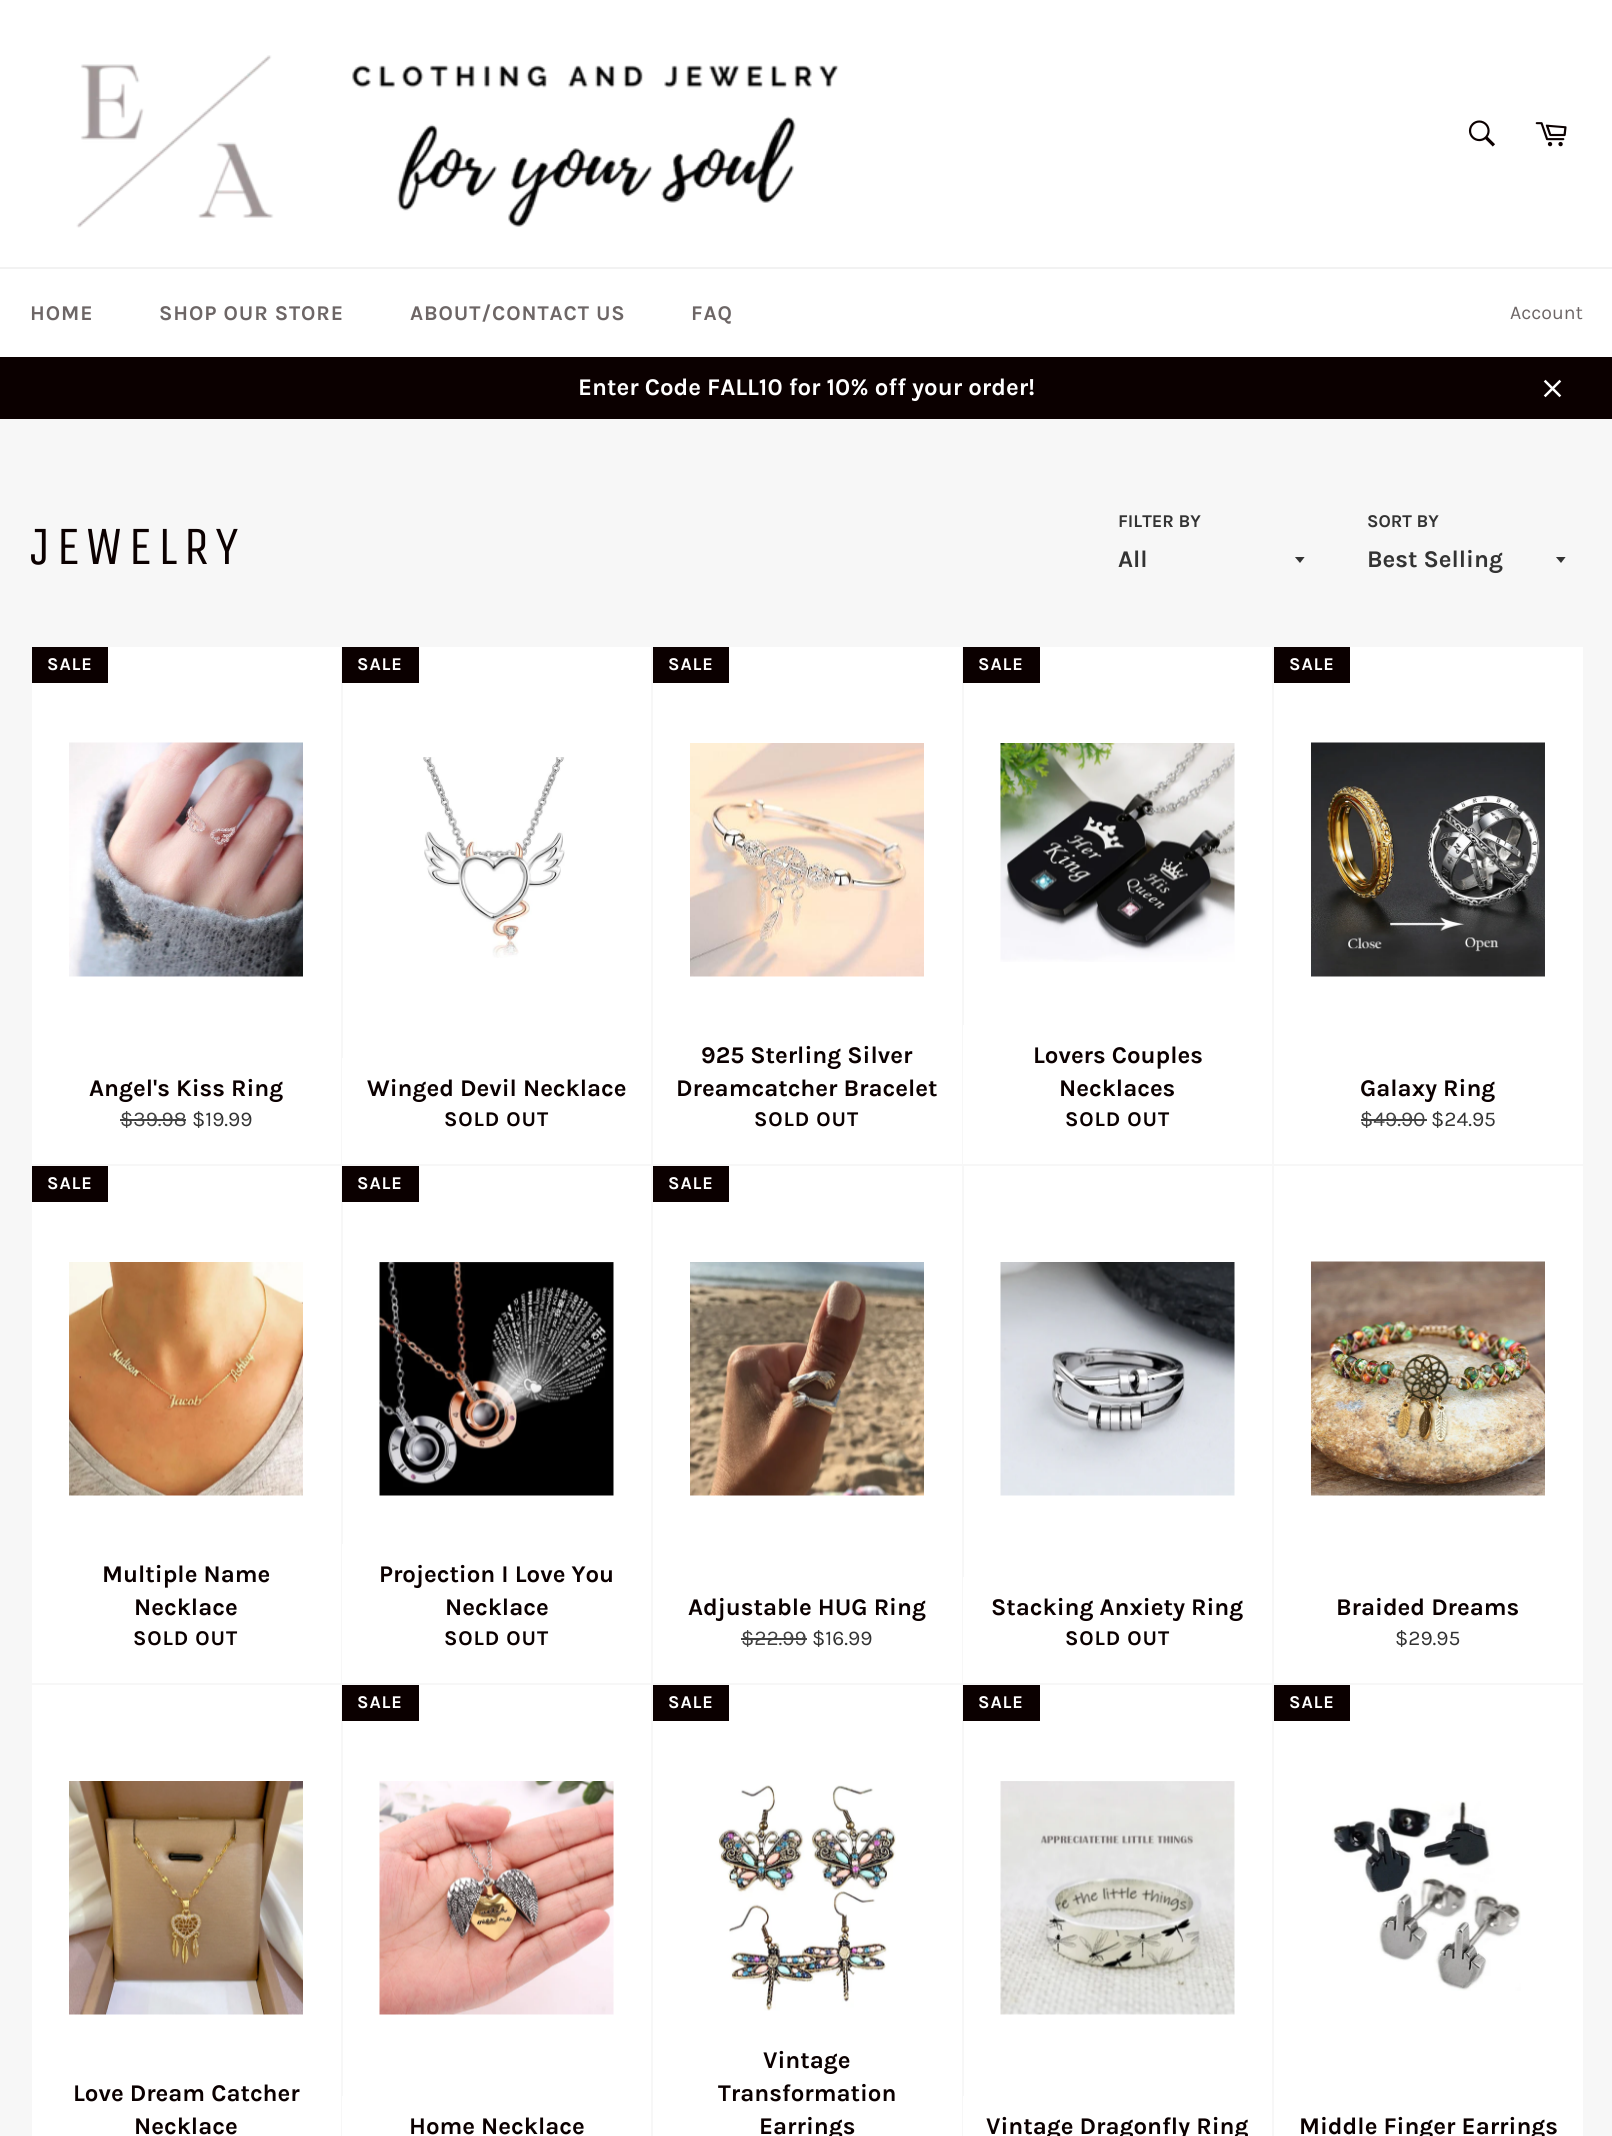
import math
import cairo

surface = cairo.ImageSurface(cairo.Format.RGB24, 1612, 2136)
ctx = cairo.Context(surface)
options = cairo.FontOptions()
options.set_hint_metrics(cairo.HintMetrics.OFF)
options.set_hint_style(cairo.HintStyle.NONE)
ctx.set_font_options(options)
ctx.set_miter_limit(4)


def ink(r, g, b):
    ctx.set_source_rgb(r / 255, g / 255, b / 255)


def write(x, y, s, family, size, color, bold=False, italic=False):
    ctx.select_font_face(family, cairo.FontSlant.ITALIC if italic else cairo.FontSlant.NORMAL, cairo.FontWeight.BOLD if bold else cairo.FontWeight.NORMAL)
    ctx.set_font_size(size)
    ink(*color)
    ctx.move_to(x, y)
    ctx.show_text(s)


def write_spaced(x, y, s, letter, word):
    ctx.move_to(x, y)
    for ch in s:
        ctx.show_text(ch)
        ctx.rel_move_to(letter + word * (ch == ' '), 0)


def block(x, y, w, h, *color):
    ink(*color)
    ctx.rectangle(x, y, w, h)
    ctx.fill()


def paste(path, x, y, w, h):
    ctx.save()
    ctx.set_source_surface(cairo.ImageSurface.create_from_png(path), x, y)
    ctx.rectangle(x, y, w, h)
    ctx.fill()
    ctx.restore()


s1 = dict(family="Karla", size=19.5, color=(109, 102, 102))
s2 = dict(family="Karla", size=24, color=(255, 255, 255), bold=True)
s3 = dict(family="Karla", size=18, color=(51, 51, 51), bold=True)
s4 = dict(family="Karla", size=24, color=(51, 51, 51), bold=True)
s5 = dict(family="Karla", size=24, color=(11, 0, 0), bold=True)
s6 = dict(family="Karla", size=21, color=(64, 64, 64))
s7 = dict(family="Karla", size=21, color=(51, 51, 51))

ink(247, 247, 247)
ctx.paint()
block(0, 0, 1612, 267, 255, 255, 255)
paste("pic1.png", 76, 55, 763, 173)
paste("pic2.png", 1468, 120, 27, 27)
paste("pic3.png", 1535, 122, 32, 25)
block(0, 269, 1612, 88, 255, 255, 255)
block(0, 267, 1612, 2, 242, 242, 242)
ctx.select_font_face("Karla", cairo.FontSlant.NORMAL, cairo.FontWeight.BOLD)
ctx.set_font_size(21)
ink(109, 102, 102)
write_spaced(30, 320, "HOME", 0.9, 0)
write_spaced(159, 320, "SHOP OUR STORE", 0.9, 0)
write_spaced(410, 320, "ABOUT/CONTACT US", 0.9, 0)
write_spaced(691, 320, "FAQ", 0.9, 0)
write(1510, 319, "Account", **s1)
block(0, 357, 1612, 62, 11, 0, 0)
write(578, 395, "Enter Code FALL10 for 10% off your order!", **s2)
paste("pic4.png", 1543, 379, 19, 19)
ctx.select_font_face("Unica One")
ctx.set_font_size(54)
ink(11, 0, 0)
write_spaced(30, 564, "JEWELRY", 5.5, 0)
write(1118, 527, "FILTER BY", **s3)
ctx.save()
ctx.rectangle(1295, 557, 12, 7)
ctx.clip()
ctx.new_path()
ctx.move_to(1294.5, 556.5)
ctx.line_to(1300, 563)
ctx.line_to(1305, 556.5)
ctx.close_path()
ctx.fill()
ctx.restore()
write(1118, 567, "All", **s4)
write(1367, 527, "SORT BY", **s3)
ctx.save()
ctx.rectangle(1556, 557, 12, 7)
ctx.clip()
ctx.new_path()
ctx.move_to(1555.5, 556.5)
ctx.line_to(1561, 563)
ctx.line_to(1566, 556.5)
ctx.close_path()
ctx.fill()
ctx.restore()
write(1367, 567, "Best Selling", **s4)
block(32, 647, 309, 517, 255, 255, 255)
block(32, 647, 76, 36, 11, 0, 0)
ctx.set_font_size(18)
ink(255, 255, 255)
write_spaced(47, 670, "SALE", 0.9, 0)
paste("pic5.png", 69, 742, 234, 235)
write(89, 1096, "Angel's Kiss Ring", **s5)
write(120, 1126, "$39.98", **s6)
block(120, 1119, 66, 2, 64, 64, 64)
write(192, 1126, "$19.99", **s7)
block(343, 647, 308, 411, 255, 255, 255)
block(342, 647, 77, 36, 11, 0, 0)
ctx.select_font_face("Karla", cairo.FontSlant.NORMAL, cairo.FontWeight.BOLD)
ctx.set_font_size(18)
ink(255, 255, 255)
write_spaced(357, 670, "SALE", 0.9, 0)
paste("pic6.png", 423, 757, 142, 201)
block(342, 1058, 309, 106, 255, 255, 255)
write(367, 1096, "Winged Devil Necklace", **s5)
ctx.set_font_size(21)
write_spaced(444, 1126, "SOLD OUT", 0.9, 0)
block(653, 647, 309, 517, 255, 255, 255)
block(653, 647, 76, 36, 11, 0, 0)
ctx.set_font_size(18)
ink(255, 255, 255)
write_spaced(668, 670, "SALE", 0.9, 0)
paste("pic7.png", 690, 743, 234, 234)
write(701, 1063, "925 Sterling Silver", **s5)
write(676, 1096, "Dreamcatcher Bracelet", **s5)
ctx.set_font_size(21)
write_spaced(754, 1126, "SOLD OUT", 0.9, 0)
block(964, 647, 308, 378, 255, 255, 255)
block(963, 647, 77, 36, 11, 0, 0)
ctx.set_font_size(18)
ink(255, 255, 255)
write_spaced(978, 670, "SALE", 0.9, 0)
paste("pic8.png", 1000, 743, 235, 219)
block(963, 1025, 309, 139, 255, 255, 255)
write(1033, 1063, "Lovers Couples", **s5)
write(1059, 1096, "Necklaces", **s5)
ctx.set_font_size(21)
write_spaced(1065, 1126, "SOLD OUT", 0.9, 0)
block(1274, 647, 309, 517, 255, 255, 255)
block(1274, 647, 76, 36, 11, 0, 0)
ctx.set_font_size(18)
ink(255, 255, 255)
write_spaced(1289, 670, "SALE", 0.9, 0)
paste("pic9.png", 1311, 742, 234, 235)
write(1360, 1096, "Galaxy Ring", **s5)
write(1360, 1126, "$49.90", **s6)
block(1361, 1119, 66, 2, 64, 64, 64)
write(1431, 1126, "$24.95", **s7)
block(32, 1166, 309, 517, 255, 255, 255)
block(32, 1166, 76, 36, 11, 0, 0)
ctx.select_font_face("Karla", cairo.FontSlant.NORMAL, cairo.FontWeight.BOLD)
ctx.set_font_size(18)
ink(255, 255, 255)
write_spaced(47, 1189, "SALE", 0.9, 0)
paste("pic10.png", 69, 1262, 234, 234)
write(102, 1582, "Multiple Name", **s5)
write(134, 1615, "Necklace", **s5)
ctx.set_font_size(21)
write_spaced(133, 1645, "SOLD OUT", 0.9, 0)
block(343, 1166, 308, 378, 255, 255, 255)
block(342, 1166, 77, 36, 11, 0, 0)
ctx.set_font_size(18)
ink(255, 255, 255)
write_spaced(357, 1189, "SALE", 0.9, 0)
paste("pic11.png", 379, 1262, 235, 234)
block(342, 1544, 309, 139, 255, 255, 255)
write(379, 1582, "Projection I Love You", **s5)
write(445, 1615, "Necklace", **s5)
ctx.set_font_size(21)
write_spaced(444, 1645, "SOLD OUT", 0.9, 0)
block(653, 1166, 309, 517, 255, 255, 255)
block(653, 1166, 76, 36, 11, 0, 0)
ctx.set_font_size(18)
ink(255, 255, 255)
write_spaced(668, 1189, "SALE", 0.9, 0)
paste("pic12.png", 690, 1262, 234, 234)
write(688, 1615, "Adjustable HUG Ring", **s5)
write(741, 1645, "$22.99", **s6)
block(741, 1638, 66, 2, 64, 64, 64)
write(812, 1645, "$16.99", **s7)
block(964, 1166, 308, 411, 255, 255, 255)
paste("pic13.png", 1000, 1262, 235, 234)
block(963, 1577, 309, 106, 255, 255, 255)
write(991, 1615, "Stacking Anxiety Ring", **s5)
ctx.set_font_size(21)
write_spaced(1065, 1645, "SOLD OUT", 0.9, 0)
block(1274, 1166, 309, 517, 255, 255, 255)
paste("pic14.png", 1311, 1261, 234, 235)
write(1336, 1615, "Braided Dreams", **s5)
write(1395, 1645, "$29.95", **s7)
block(32, 1685, 309, 451, 255, 255, 255)
paste("pic15.png", 69, 1781, 234, 234)
write(73, 2101, "Love Dream Catcher", **s5)
write(134, 2134, "Necklace", **s5)
block(343, 1685, 308, 411, 255, 255, 255)
block(342, 1685, 77, 36, 11, 0, 0)
ctx.set_font_size(18)
ink(255, 255, 255)
write_spaced(357, 1708, "SALE", 0.9, 0)
paste("pic16.png", 379, 1781, 235, 234)
block(342, 2096, 309, 40, 255, 255, 255)
write(409, 2134, "Home Necklace", **s5)
block(653, 1685, 309, 451, 255, 255, 255)
block(653, 1685, 76, 36, 11, 0, 0)
ctx.set_font_size(18)
ink(255, 255, 255)
write_spaced(668, 1708, "SALE", 0.9, 0)
paste("pic17.png", 718, 1785, 178, 226)
write(763, 2068, "Vintage", **s5)
write(718, 2101, "Transformation", **s5)
write(759, 2134, "Earrings", **s5)
block(964, 1685, 308, 411, 255, 255, 255)
block(963, 1685, 77, 36, 11, 0, 0)
ctx.set_font_size(18)
ink(255, 255, 255)
write_spaced(978, 1708, "SALE", 0.9, 0)
paste("pic18.png", 1000, 1781, 235, 234)
block(963, 2096, 309, 40, 255, 255, 255)
write(986, 2134, "Vintage Dragonfly Ring", **s5)
block(1274, 1685, 309, 451, 255, 255, 255)
block(1274, 1685, 76, 36, 11, 0, 0)
ctx.set_font_size(18)
ink(255, 255, 255)
write_spaced(1289, 1708, "SALE", 0.9, 0)
paste("pic19.png", 1332, 1801, 189, 190)
write(1299, 2134, "Middle Finger Earrings", **s5)
surface.write_to_png("screenshot.png")
